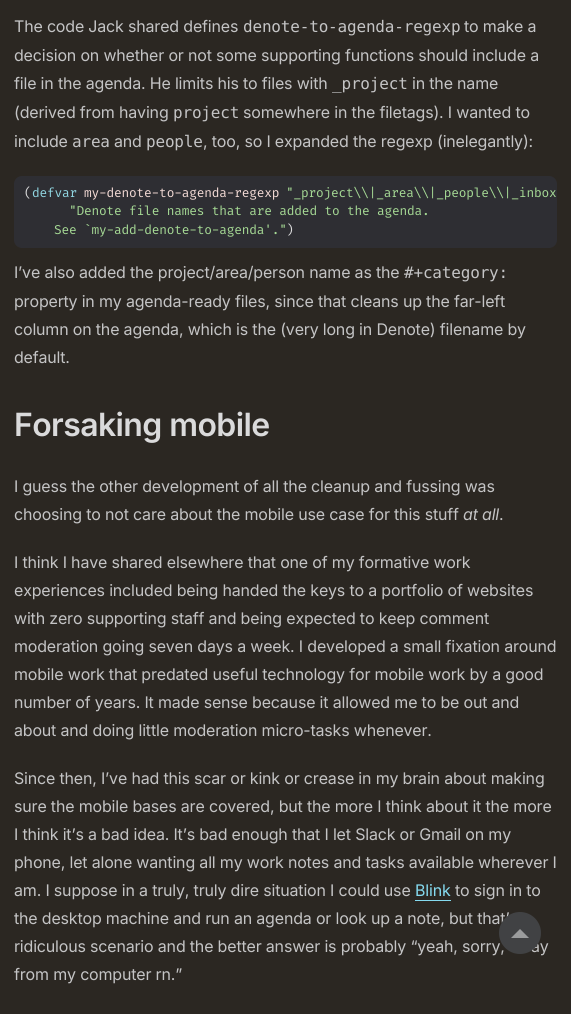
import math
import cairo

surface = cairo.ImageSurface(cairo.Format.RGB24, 571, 1014)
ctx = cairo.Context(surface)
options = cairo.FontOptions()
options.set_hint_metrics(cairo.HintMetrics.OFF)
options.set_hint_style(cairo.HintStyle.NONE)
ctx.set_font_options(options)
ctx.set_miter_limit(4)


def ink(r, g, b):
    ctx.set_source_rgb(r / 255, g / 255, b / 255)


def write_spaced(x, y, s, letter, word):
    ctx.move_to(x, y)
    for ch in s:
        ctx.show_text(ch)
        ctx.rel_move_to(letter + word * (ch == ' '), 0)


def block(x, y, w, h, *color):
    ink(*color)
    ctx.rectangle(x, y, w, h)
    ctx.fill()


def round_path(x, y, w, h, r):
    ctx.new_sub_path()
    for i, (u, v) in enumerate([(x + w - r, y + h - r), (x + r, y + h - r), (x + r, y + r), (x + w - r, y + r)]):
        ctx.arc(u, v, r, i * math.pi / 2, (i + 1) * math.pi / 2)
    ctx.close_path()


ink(43, 39, 34)
ctx.paint()
ctx.select_font_face("Inter")
ctx.set_font_size(16)
ink(196, 196, 197)
write_spaced(14, 32, "The code Jack shared defines", -0.18, 0)
ctx.select_font_face("DejaVu Sans Mono")
write_spaced(243, 32, "denote-to-agenda-regexp", -0.18, 0)
ctx.select_font_face("Inter")
write_spaced(464, 32, "to make a", -0.18, 0)
write_spaced(14, 61, "decision on whether or not some supporting functions should include a", -0.18, 0)
write_spaced(14, 89, "file in the agenda. He limits his to files with", -0.18, 0)
ctx.select_font_face("DejaVu Sans Mono")
write_spaced(332, 89, "_project", -0.18, 0)
ctx.select_font_face("Inter")
write_spaced(412, 89, "in the name", -0.18, 0)
write_spaced(14, 118, "(derived from having", -0.18, 0)
ctx.select_font_face("DejaVu Sans Mono")
write_spaced(173, 118, "project", -0.18, 0)
ctx.select_font_face("Inter")
write_spaced(243, 118, "somewhere in the filetags). I wanted to", -0.18, 0)
write_spaced(14, 147, "include", -0.18, 0)
ctx.select_font_face("DejaVu Sans Mono")
write_spaced(72, 147, "area", -0.18, 0)
ctx.select_font_face("Inter")
write_spaced(114, 147, "and", -0.18, 0)
ctx.select_font_face("DejaVu Sans Mono")
write_spaced(146, 147, "people", -0.18, 0)
ctx.select_font_face("Inter")
write_spaced(203, 147, ", too, so I expanded the regexp (inelegantly):", -0.18, 0)
ink(46, 46, 51)
round_path(14, 176, 543, 72, 8)
ctx.fill()
ctx.select_font_face("Fira Code")
ctx.set_font_size(12.5)
ink(218, 218, 219)
write_spaced(24, 197, "(", -0.18, 0)
ink(145, 215, 227)
write_spaced(32, 197, "defvar", -0.18, 0)
ink(244, 219, 214)
write_spaced(84, 197, "my-denote-to-agenda-regexp", -0.18, 0)
ink(166, 218, 149)
write_spaced(286, 197, "\"_project\\\\|_area\\\\|_people\\\\|_inbox", -0.18, 0)
write_spaced(69, 215, "\"Denote file names that are added to the agenda.", -0.18, 0)
write_spaced(54, 234, "See `my-add-denote-to-agenda'.\"", -0.18, 0)
ink(218, 218, 219)
write_spaced(286, 234, ")", -0.18, 0)
ctx.select_font_face("Inter")
ctx.set_font_size(16)
ink(196, 196, 197)
write_spaced(14, 278, "I’ve also added the project/area/person name as the", -0.18, 0)
ctx.select_font_face("DejaVu Sans Mono")
write_spaced(404, 278, "#+category:", -0.18, 0)
ctx.select_font_face("Inter")
write_spaced(14, 307, "property in my agenda-ready files, since that cleans up the far-left", -0.18, 0)
write_spaced(14, 335, "column on the agenda, which is the (very long in Denote) filename by", -0.18, 0)
write_spaced(14, 363, "default.", -0.18, 0)
ctx.select_font_face("Inter SemiBold")
ctx.set_font_size(32)
ink(218, 218, 219)
write_spaced(14, 436, "Forsaking mobile", -0.6, 0)
ctx.select_font_face("Inter")
ctx.set_font_size(16)
ink(196, 196, 197)
write_spaced(14, 492, "I guess the other development of all the cleanup and fussing was", -0.18, 0)
write_spaced(14, 520, "choosing to not care about the mobile use case for this stuff", -0.18, 0)
ctx.select_font_face("Inter", cairo.FontSlant.ITALIC)
write_spaced(463, 520, "at all", -0.18, 0)
ctx.select_font_face("Inter")
write_spaced(499, 520, ".", -0.18, 0)
write_spaced(14, 568, "I think I have shared elsewhere that one of my formative work", -0.18, 0)
write_spaced(14, 596, "experiences included being handed the keys to a portfolio of websites", -0.18, 0)
write_spaced(14, 624, "with zero supporting staff and being expected to keep comment", -0.18, 0)
write_spaced(14, 652, "moderation going seven days a week. I developed a small fixation around", -0.18, 0)
write_spaced(14, 680, "mobile work that predated useful technology for mobile work by a good", -0.18, 0)
write_spaced(14, 708, "number of years. It made sense because it allowed me to be out and", -0.18, 0)
write_spaced(14, 736, "about and doing little moderation micro-tasks whenever.", -0.18, 0)
write_spaced(14, 784, "Since then, I’ve had this scar or kink or crease in my brain about making", -0.18, 0)
write_spaced(14, 812, "sure the mobile bases are covered, but the more I think about it the more", -0.18, 0)
write_spaced(14, 840, "I think it’s a bad idea. It’s bad enough that I let Slack or Gmail on my", -0.18, 0)
write_spaced(14, 868, "phone, let alone wanting all my work notes and tasks available wherever I", -0.18, 0)
write_spaced(14, 896, "am. I suppose in a truly, truly dire situation I could use", -0.18, 0)
ink(133, 218, 239)
write_spaced(415, 896, "Blink", -0.18, 0)
block(415, 900, 36, 1, 133, 218, 239)
ink(196, 196, 197)
write_spaced(455, 896, "to sign in to", -0.18, 0)
write_spaced(14, 924, "the desktop machine and run an agenda or look up a note, but that’", -0.18, 0)
write_spaced(14, 952, "ridiculous scenario and the better answer is probably “yeah, sorry,", -0.18, 0)
write_spaced(531, 952, "ay", -0.18, 0)
write_spaced(14, 980, "from my computer rn.”", -0.18, 0)
ink(65, 66, 68)
ctx.new_path()
ctx.arc(520, 933, 21, 0, 2 * math.pi)
ctx.fill()
ink(155, 156, 157)
ctx.new_path()
ctx.move_to(529, 938)
ctx.line_to(511, 938)
ctx.line_to(520, 929)
ctx.close_path()
ctx.fill()
surface.write_to_png("screenshot.png")
